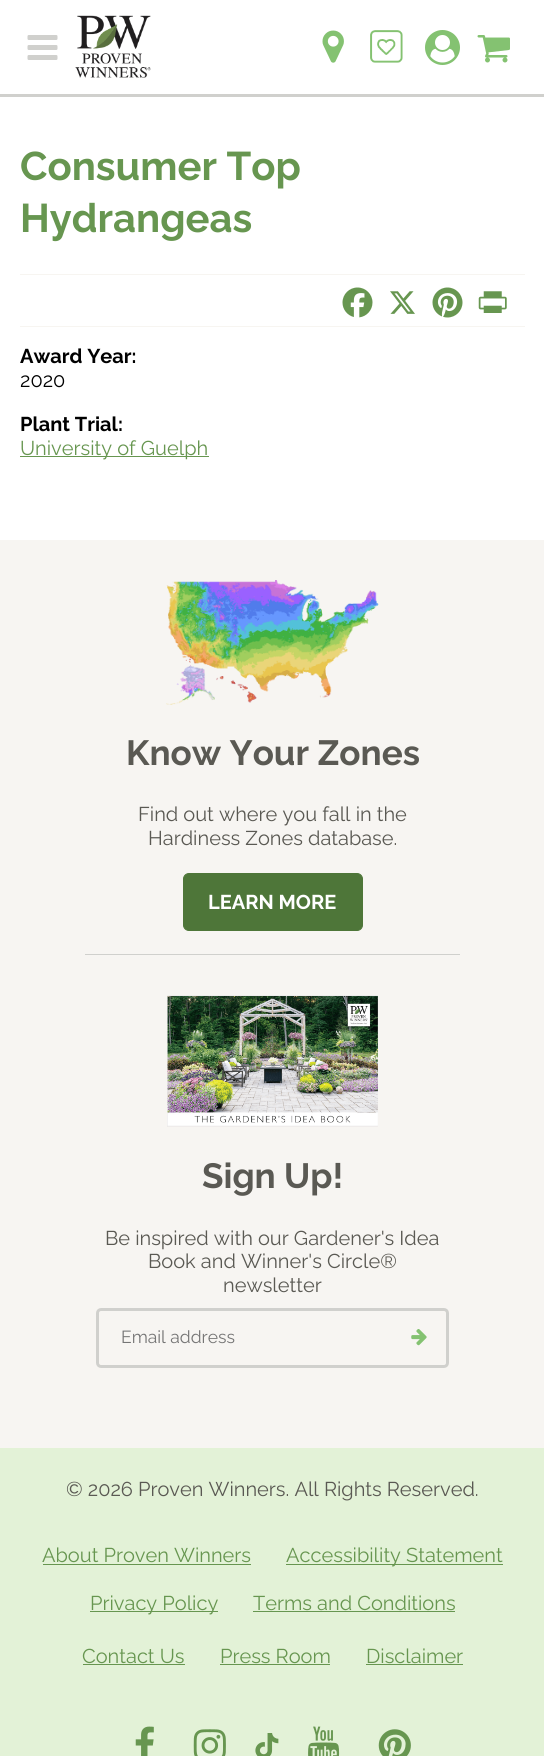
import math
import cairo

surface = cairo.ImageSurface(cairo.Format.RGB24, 544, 1756)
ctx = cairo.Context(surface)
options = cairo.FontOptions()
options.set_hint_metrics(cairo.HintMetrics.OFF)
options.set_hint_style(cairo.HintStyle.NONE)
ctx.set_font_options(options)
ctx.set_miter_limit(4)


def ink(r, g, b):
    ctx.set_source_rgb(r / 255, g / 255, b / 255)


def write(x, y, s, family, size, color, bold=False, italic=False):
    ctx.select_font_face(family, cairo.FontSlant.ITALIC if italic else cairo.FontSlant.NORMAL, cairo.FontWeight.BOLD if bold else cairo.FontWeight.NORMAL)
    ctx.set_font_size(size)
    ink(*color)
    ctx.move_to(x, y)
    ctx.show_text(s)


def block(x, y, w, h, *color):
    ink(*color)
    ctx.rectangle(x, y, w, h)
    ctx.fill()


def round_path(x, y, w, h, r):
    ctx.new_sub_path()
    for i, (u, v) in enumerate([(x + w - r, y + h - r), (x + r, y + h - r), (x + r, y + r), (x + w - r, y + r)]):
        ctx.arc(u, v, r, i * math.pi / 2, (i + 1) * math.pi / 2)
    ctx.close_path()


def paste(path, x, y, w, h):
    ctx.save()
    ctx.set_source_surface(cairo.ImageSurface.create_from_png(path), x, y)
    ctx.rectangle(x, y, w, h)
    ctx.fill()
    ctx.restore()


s1 = dict(family="Raleway", size=40, color=(103, 150, 80), bold=True)
s2 = dict(family="Raleway", size=20, color=(0, 0, 0), bold=True)
s3 = dict(family="Raleway", size=20, color=(0, 0, 0))
s4 = dict(family="Raleway", size=20, color=(103, 150, 80))
s5 = dict(family="Raleway", size=35, color=(90, 89, 83), bold=True)
s6 = dict(family="Raleway", size=20, color=(90, 89, 83))
s7 = dict(family="Raleway", size=20, color=(255, 255, 255), bold=True)
s8 = dict(family="Raleway", size=17.5, color=(117, 117, 117))

ink(255, 255, 255)
ctx.paint()
block(0, 94, 544, 3, 208, 208, 205)
paste("pic1.png", 27, 35, 31, 25)
paste("pic2.png", 75, 15, 76, 63)
paste("pic3.png", 322, 30, 22, 33)
paste("pic4.png", 370, 30, 33, 33)
paste("pic5.png", 425, 30, 35, 35)
paste("pic6.png", 477, 35, 33, 28)
write(20, 180, "Consumer Top", **s1)
write(20, 232, "Hydrangeas", **s1)
block(20, 274, 505, 1, 247, 245, 241)
block(20, 326, 505, 1, 247, 245, 241)
paste("pic7.png", 342, 287, 31, 31)
paste("pic8.png", 390, 291, 25, 23)
paste("pic9.png", 432, 287, 31, 31)
paste("pic10.png", 478, 291, 29, 22)
write(20, 363, "Award Year:", **s2)
write(20, 387, "2020", **s3)
write(20, 431, "Plant Trial:", **s2)
block(20, 456, 189, 1, 103, 150, 80)
write(20, 455, "University of Guelph", **s4)
block(0, 540, 544, 908, 247, 245, 242)
paste("pic11.png", 166, 580, 213, 125)
write(126, 765, "Know Your Zones", **s5)
write(138, 821, "Find out where you fall in the", **s6)
write(148, 845, "Hardiness Zones database.", **s6)
ink(78, 118, 57)
round_path(183.5, 873.5, 179, 57, 5.5)
ctx.fill_preserve()
ctx.set_line_width(1)
ctx.stroke()
write(208, 909, "LEARN MORE", **s7)
block(85, 954, 375, 1, 208, 208, 205)
paste("pic12.png", 167, 995, 211, 132)
write(202, 1188, "Sign Up!", **s5)
write(105, 1245, "Be inspired with our Gardener's Idea", **s6)
write(148, 1268, "Book and Winner's Circle®", **s6)
write(223, 1292, "newsletter", **s6)
round_path(97.5, 1309.5, 350, 57, 3.5)
ink(208, 208, 205)
ctx.set_line_width(3)
ctx.stroke()
write(121, 1343, "Email address", **s8)
paste("pic13.png", 411, 1329, 16, 17)
block(0, 1448, 544, 308, 227, 242, 215)
write(66, 1496, "© 2026 Proven Winners. All Rights Reserved.", **s6)
write(42, 1562, "About Proven Winners", **s4)
block(43, 1564, 208, 1, 103, 150, 80)
block(286, 1564, 217, 1, 103, 150, 80)
write(286, 1562, "Accessibility Statement", **s4)
block(90, 1611, 128, 1, 103, 150, 80)
write(90, 1610, "Privacy Policy", **s4)
write(253, 1610, "Terms and Conditions", **s4)
block(253, 1611, 202, 1, 103, 150, 80)
write(82, 1663, "Contact Us", **s4)
block(83, 1664, 102, 1, 103, 150, 80)
write(220, 1663, "Press Room", **s4)
block(220, 1664, 110, 1, 103, 150, 80)
write(366, 1663, "Disclaimer", **s4)
block(366, 1664, 97, 1, 103, 150, 80)
paste("pic14.png", 135, 1726, 19, 30)
paste("pic15.png", 193, 1729, 33, 27)
paste("pic16.png", 255, 1733, 24, 23)
paste("pic17.png", 308, 1726, 32, 30)
paste("pic18.png", 378, 1729, 33, 27)
surface.write_to_png("screenshot.png")
